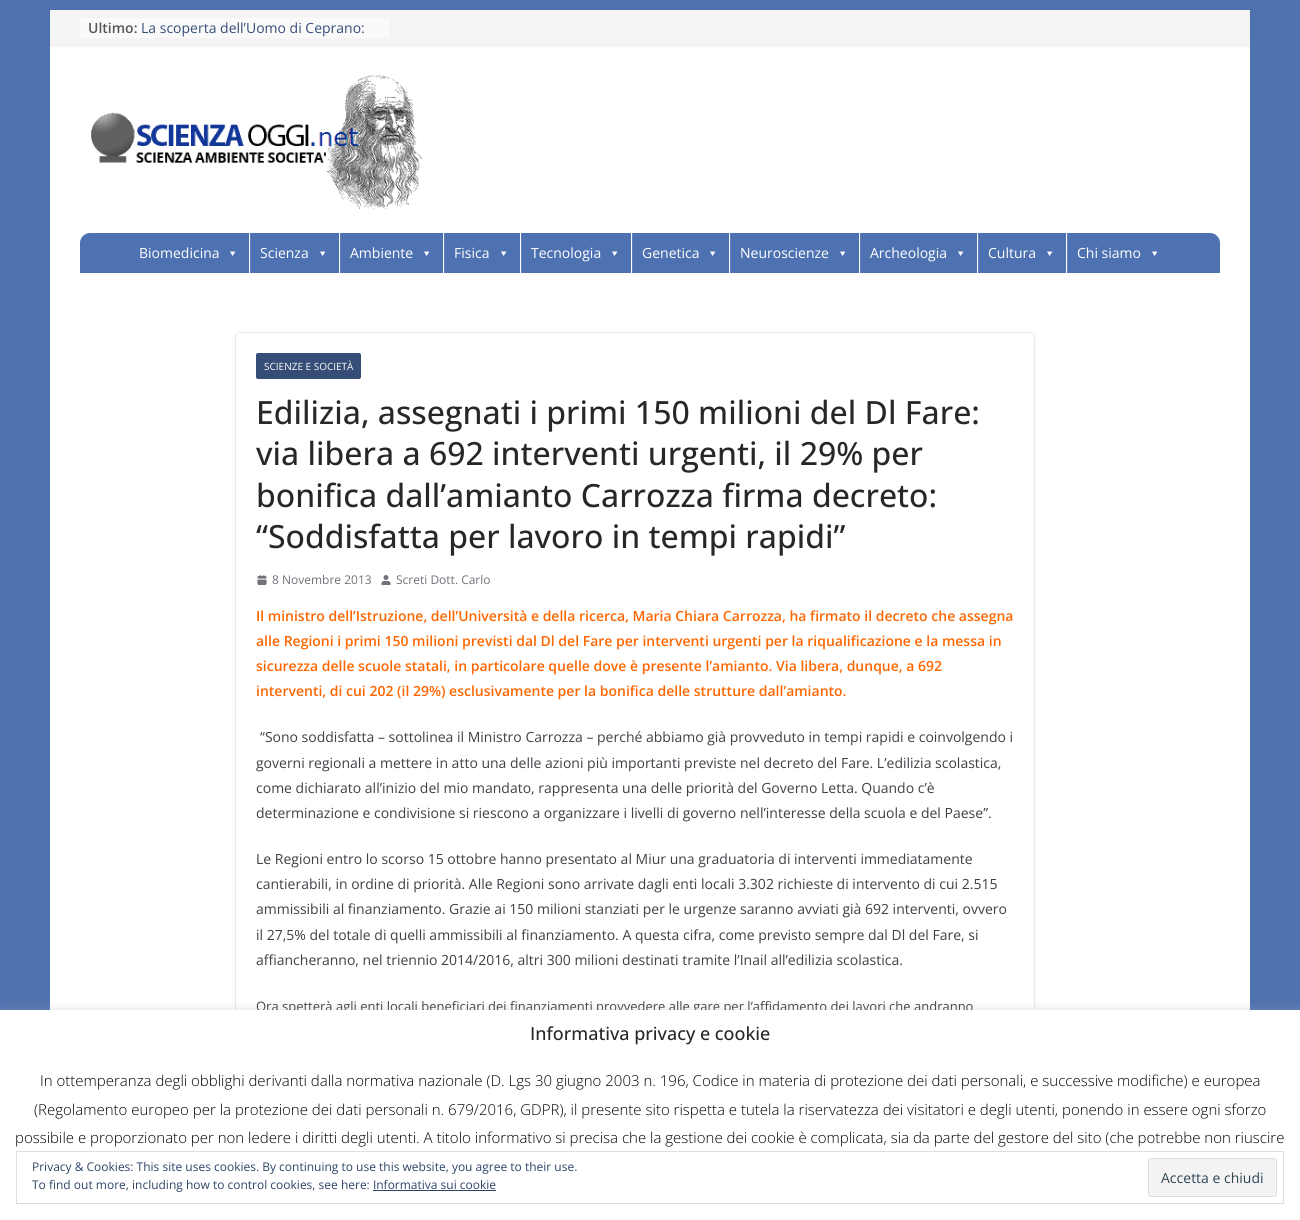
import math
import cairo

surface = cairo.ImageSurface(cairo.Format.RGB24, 1300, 1220)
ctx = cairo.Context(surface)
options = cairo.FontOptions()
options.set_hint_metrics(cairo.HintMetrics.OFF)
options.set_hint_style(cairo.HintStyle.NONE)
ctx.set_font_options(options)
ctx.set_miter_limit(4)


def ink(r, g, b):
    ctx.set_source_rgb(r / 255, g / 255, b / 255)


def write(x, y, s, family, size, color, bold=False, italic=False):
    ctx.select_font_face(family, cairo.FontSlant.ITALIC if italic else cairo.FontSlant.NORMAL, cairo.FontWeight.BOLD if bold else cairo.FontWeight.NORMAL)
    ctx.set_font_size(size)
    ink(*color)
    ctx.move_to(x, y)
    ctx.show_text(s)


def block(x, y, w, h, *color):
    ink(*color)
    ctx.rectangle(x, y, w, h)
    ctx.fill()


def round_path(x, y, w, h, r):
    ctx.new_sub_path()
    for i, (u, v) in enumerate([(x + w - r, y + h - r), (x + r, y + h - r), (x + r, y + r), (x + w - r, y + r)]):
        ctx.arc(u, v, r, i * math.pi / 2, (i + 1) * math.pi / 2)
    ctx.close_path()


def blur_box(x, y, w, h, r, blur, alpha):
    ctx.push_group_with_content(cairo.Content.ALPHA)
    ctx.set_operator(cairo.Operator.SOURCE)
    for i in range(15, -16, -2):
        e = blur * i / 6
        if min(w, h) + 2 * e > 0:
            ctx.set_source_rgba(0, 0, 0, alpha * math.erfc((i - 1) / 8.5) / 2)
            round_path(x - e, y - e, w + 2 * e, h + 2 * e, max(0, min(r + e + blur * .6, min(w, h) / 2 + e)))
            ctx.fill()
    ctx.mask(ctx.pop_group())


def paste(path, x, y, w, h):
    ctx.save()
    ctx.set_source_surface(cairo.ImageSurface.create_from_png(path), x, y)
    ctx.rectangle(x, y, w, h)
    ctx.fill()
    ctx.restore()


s1 = dict(family="Open Sans SemiBold", size=14, color=(85, 85, 85))
s2 = dict(family="Open Sans", size=14, color=(53, 77, 119))
s3 = dict(family="Open Sans", size=14, color=(255, 255, 255))
s4 = dict(family="Open Sans", size=10, color=(255, 255, 255))
s5 = dict(family="Open Sans Medium", size=32, color=(39, 39, 42))
s6 = dict(family="Open Sans", size=12, color=(113, 113, 122))
s7 = dict(family="Open Sans SemiBold", size=14, color=(255, 102, 0))
s8 = dict(family="Open Sans", size=14, color=(63, 63, 70))
s9 = dict(family="Open Sans", size=13, color=(63, 63, 70))
s10 = dict(family="Open Sans Medium", size=18, color=(39, 39, 42))
s11 = dict(family="Open Sans Light", size=15, color=(0, 0, 0))
s12 = dict(family="Open Sans", size=12, color=(46, 68, 103))
s13 = dict(family="Open Sans", size=14, color=(46, 68, 83))

ink(79, 114, 176)
ctx.paint()
block(50, 46, 1200, 964, 255, 255, 255)
ink(0, 0, 0)
blur_box(50, 10, 1200, 36, 0, 1, 0.1)
block(50, 10, 1200, 36, 244, 244, 245)
block(80, 18, 309, 20, 250, 250, 250)
write(88, 33, "Ultimo:", **s1)
write(141, 33, "La scoperta dell’Uomo di Ceprano:", **s2)
paste("pic1.png", 91, 75, 331, 134)
ink(78, 114, 177)
ctx.new_path()
ctx.move_to(90, 233)
ctx.line_to(1210, 233)
ctx.curve_to(1215.5, 233, 1220, 237.5, 1220, 243)
ctx.line_to(1220, 273)
ctx.line_to(80, 273)
ctx.line_to(80, 243)
ctx.curve_to(80, 237.5, 84.5, 233, 90, 233)
ctx.close_path()
ctx.fill()
write(139, 258, "Biomedicina", **s3)
ctx.new_path()
ctx.move_to(235.5, 251.5)
ctx.line_to(232.5, 256)
ctx.line_to(230, 251.5)
ctx.close_path()
ctx.fill()
block(250, 233, 1, 40, 96, 128, 185)
block(249, 233, 1, 40, 255, 255, 255)
write(260, 258, "Scienza", **s3)
ctx.new_path()
ctx.move_to(325.5, 251.5)
ctx.line_to(322.5, 256)
ctx.line_to(320, 251.5)
ctx.close_path()
ctx.fill()
block(340, 233, 1, 40, 96, 128, 185)
block(339, 233, 1, 40, 255, 255, 255)
write(350, 258, "Ambiente", **s3)
ctx.new_path()
ctx.move_to(429.5, 251.5)
ctx.line_to(426.5, 256)
ctx.line_to(424, 251.5)
ctx.close_path()
ctx.fill()
block(444, 233, 1, 40, 96, 128, 185)
block(443, 233, 1, 40, 255, 255, 255)
write(454, 258, "Fisica", **s3)
ctx.new_path()
ctx.move_to(506.5, 251.5)
ctx.line_to(503.5, 256)
ctx.line_to(501, 251.5)
ctx.close_path()
ctx.fill()
block(521, 233, 1, 40, 96, 128, 185)
block(520, 233, 1, 40, 255, 255, 255)
write(531, 258, "Tecnologia", **s3)
ctx.new_path()
ctx.move_to(617.5, 251.5)
ctx.line_to(614.5, 256)
ctx.line_to(612, 251.5)
ctx.close_path()
ctx.fill()
block(632, 233, 1, 40, 96, 128, 185)
block(631, 233, 1, 40, 255, 255, 255)
write(642, 258, "Genetica", **s3)
ctx.new_path()
ctx.move_to(715.5, 251.5)
ctx.line_to(712.5, 256)
ctx.line_to(710, 251.5)
ctx.close_path()
ctx.fill()
block(730, 233, 1, 40, 96, 128, 185)
block(729, 233, 1, 40, 255, 255, 255)
write(740, 258, "Neuroscienze", **s3)
ctx.new_path()
ctx.move_to(845.5, 251.5)
ctx.line_to(842.5, 256)
ctx.line_to(840, 251.5)
ctx.close_path()
ctx.fill()
block(860, 233, 1, 40, 96, 128, 185)
block(859, 233, 1, 40, 255, 255, 255)
write(870, 258, "Archeologia", **s3)
ctx.new_path()
ctx.move_to(963.5, 251.5)
ctx.line_to(960.5, 256)
ctx.line_to(958, 251.5)
ctx.close_path()
ctx.fill()
block(978, 233, 1, 40, 96, 128, 185)
block(977, 233, 1, 40, 255, 255, 255)
write(988, 258, "Cultura", **s3)
ctx.new_path()
ctx.move_to(1052.5, 251.5)
ctx.line_to(1049.5, 256)
ctx.line_to(1047, 251.5)
ctx.close_path()
ctx.fill()
block(1067, 233, 1, 40, 96, 128, 185)
block(1066, 233, 1, 40, 255, 255, 255)
write(1077, 258, "Chi siamo", **s3)
ctx.new_path()
ctx.move_to(1157.5, 251.5)
ctx.line_to(1154.5, 256)
ctx.line_to(1152, 251.5)
ctx.close_path()
ctx.fill()
ctx.save()
ctx.set_fill_rule(cairo.FillRule.EVEN_ODD)
ctx.new_path()
ctx.move_to(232, 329)
ctx.line_to(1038, 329)
ctx.line_to(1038, 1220)
ctx.line_to(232, 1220)
ctx.close_path()
ctx.move_to(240, 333)
ctx.line_to(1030, 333)
ctx.curve_to(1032, 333, 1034, 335, 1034, 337)
ctx.line_to(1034, 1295)
ctx.curve_to(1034, 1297, 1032, 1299, 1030, 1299)
ctx.line_to(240, 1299)
ctx.curve_to(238, 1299, 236, 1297, 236, 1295)
ctx.line_to(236, 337)
ctx.curve_to(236, 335, 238, 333, 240, 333)
ctx.close_path()
ctx.clip()
ink(0, 0, 0)
blur_box(236, 333, 798, 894, 4, 1, 0.24)
ctx.restore()
ink(53, 77, 119)
round_path(256, 353, 105, 26, 2)
ctx.fill()
write(264, 370, "SCIENZE E SOCIETÀ", **s4)
write(256, 424, "Edilizia, assegnati i primi 150 milioni del Dl Fare:", **s5)
write(256, 465, "via libera a 692 interventi urgenti, il 29% per", **s5)
write(256, 507, "bonifica dall’amianto Carrozza firma decreto:", **s5)
write(256, 548, "“Soddisfatta per lavoro in tempi rapidi”", **s5)
paste("pic2.png", 257, 575, 10, 10)
write(272, 584, "8 Novembre 2013", **s6)
paste("pic3.png", 381, 575, 10, 10)
write(396, 584, "Screti Dott. Carlo", **s6)
write(256, 621, "Il ministro dell’Istruzione, dell’Università e della ricerca, Maria Chiara Carrozza, ha firmato il decreto che assegna", **s7)
write(256, 646, "alle Regioni i primi 150 milioni previsti dal Dl del Fare per interventi urgenti per la riqualificazione e la messa in", **s7)
write(256, 671, "sicurezza delle scuole statali, in particolare quelle dove è presente l’amianto. Via libera, dunque, a 692", **s7)
write(256, 696, "interventi, di cui 202 (il 29%) esclusivamente per la bonifica delle strutture dall’amianto.", **s7)
write(260, 742, "“Sono soddisfatta – sottolinea il Ministro Carrozza – perché abbiamo già provveduto in tempi rapidi e coinvolgendo i", **s8)
write(256, 768, "governi regionali a mettere in atto una delle azioni più importanti previste nel decreto del Fare. L’edilizia scolastica,", **s8)
write(256, 793, "come dichiarato all’inizio del mio mandato, rappresenta una delle priorità del Governo Letta. Quando c’è", **s8)
write(256, 818, "determinazione e condivisione si riescono a organizzare i livelli di governo nell’interesse della scuola e del Paese”.", **s8)
write(256, 864, "Le Regioni entro lo scorso 15 ottobre hanno presentato al Miur una graduatoria di interventi immediatamente", **s8)
write(256, 889, "cantierabili, in ordine di priorità. Alle Regioni sono arrivate dagli enti locali 3.302 richieste di intervento di cui 2.515", **s8)
write(256, 914, "ammissibili al finanziamento. Grazie ai 150 milioni stanziati per le urgenze saranno avviati già 692 interventi, ovvero", **s8)
write(256, 940, "il 27,5% del totale di quelli ammissibili al finanziamento. A questa cifra, come previsto sempre dal Dl del Fare, si", **s8)
write(256, 965, "affiancheranno, nel triennio 2014/2016, altri 300 milioni destinati tramite l’Inail all’edilizia scolastica.", **s8)
write(256, 1011, "Ora spetterà agli enti locali beneficiari dei finanziamenti provvedere alle gare per l’affidamento dei lavori che andranno", **s9)
ink(172, 171, 171)
blur_box(0, 1009, 1300, 210, 0, 5, 0.3)
block(0, 1010, 1300, 210, 255, 255, 255)
write(530, 1040, "Informativa privacy e cookie", **s10)
write(40, 1086, "In ottemperanza degli obblighi derivanti dalla normativa nazionale (D. Lgs 30 giugno 2003 n. 196, Codice in materia di protezione dei dati personali, e successive modifiche) e europea", **s11)
write(34, 1115, "(Regolamento europeo per la protezione dei dati personali n. 679/2016, GDPR), il presente sito rispetta e tutela la riservatezza dei visitatori e degli utenti, ponendo in essere ogni sforzo", **s11)
write(15, 1143, "possibile e proporzionato per non ledere i diritti degli utenti. A titolo informativo si precisa che la gestione dei cookie è complicata, sia da parte del gestore del sito (che potrebbe non riuscire", **s11)
ctx.rectangle(16.5, 1151.5, 1267, 52)
ink(222, 222, 222)
ctx.set_line_width(1)
ctx.stroke()
write(32, 1171, "Privacy & Cookies: This site uses cookies. By continuing to use this website, you agree to their use.", **s12)
write(32, 1189, "To find out more, including how to control cookies, see here: Informativa sui cookie", **s12)
ink(243, 243, 243)
round_path(1148.5, 1158.5, 128, 38, 2.5)
ctx.fill_preserve()
ink(222, 222, 222)
ctx.stroke()
write(1161, 1183, "Accetta e chiudi", **s13)
block(373, 1190, 123, 1, 46, 68, 103)
surface.write_to_png("screenshot.png")
